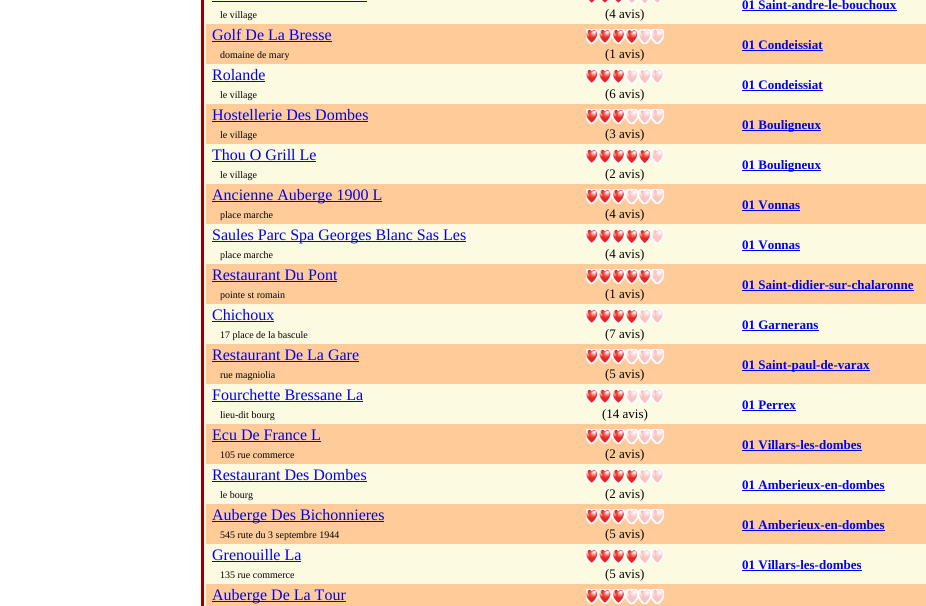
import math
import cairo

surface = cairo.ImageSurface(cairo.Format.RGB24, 926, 606)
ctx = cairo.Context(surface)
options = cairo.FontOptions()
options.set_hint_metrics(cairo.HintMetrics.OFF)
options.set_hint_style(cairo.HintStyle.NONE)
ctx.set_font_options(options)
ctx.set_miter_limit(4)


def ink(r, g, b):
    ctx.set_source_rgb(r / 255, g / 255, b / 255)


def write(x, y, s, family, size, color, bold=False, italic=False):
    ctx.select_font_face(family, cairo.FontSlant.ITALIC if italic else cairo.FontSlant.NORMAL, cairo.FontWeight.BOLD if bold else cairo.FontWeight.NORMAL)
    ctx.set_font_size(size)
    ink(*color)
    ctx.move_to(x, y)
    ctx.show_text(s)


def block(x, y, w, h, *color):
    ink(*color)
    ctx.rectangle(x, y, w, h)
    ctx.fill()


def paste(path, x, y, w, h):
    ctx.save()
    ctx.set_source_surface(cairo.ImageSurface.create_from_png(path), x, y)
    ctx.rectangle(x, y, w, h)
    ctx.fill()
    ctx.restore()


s1 = dict(family="Liberation Serif", size=13, color=(0, 0, 238), bold=True)
s2 = dict(family="Liberation Serif", size=10, color=(0, 0, 0))
s3 = dict(family="Liberation Serif", size=13, color=(0, 0, 0))
s4 = dict(family="Liberation Serif", size=16, color=(0, 0, 238))

ink(255, 255, 255)
ctx.paint()
ink(252, 250, 225)
ctx.rectangle(202.5, -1.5, 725, 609)
ctx.fill_preserve()
ink(153, 0, 0)
ctx.set_line_width(3)
ctx.stroke()
write(742, 9, "01 Saint-andre-le-bouchoux", **s1)
block(742, 10, 155, 1, 0, 0, 238)
block(212, 1, 155, 1, 0, 0, 238)
write(220, 18, "le village", **s2)
paste("pic1.png", 586, 0, 77, 4)
write(605, 18, "(4 avis)", **s3)
block(206, 24, 720, 40, 255, 204, 153)
write(212, 40, "Golf De La Bresse", **s4)
block(212, 41, 120, 1, 0, 0, 238)
write(220, 58, "domaine de mary", **s2)
write(742, 49, "01 Condeissiat", **s1)
block(742, 50, 81, 1, 0, 0, 238)
paste("pic2.png", 586, 29, 78, 15)
write(605, 58, "(1 avis)", **s3)
write(212, 80, "Rolande", **s4)
block(212, 81, 53, 1, 0, 0, 238)
write(220, 98, "le village", **s2)
write(742, 89, "01 Condeissiat", **s1)
block(742, 90, 81, 1, 0, 0, 238)
paste("pic3.png", 586, 69, 78, 15)
write(605, 98, "(6 avis)", **s3)
block(206, 104, 720, 40, 255, 204, 153)
write(212, 120, "Hostellerie Des Dombes", **s4)
block(212, 121, 156, 1, 0, 0, 238)
write(220, 138, "le village", **s2)
block(742, 130, 79, 1, 0, 0, 238)
write(742, 129, "01 Bouligneux", **s1)
paste("pic4.png", 586, 109, 78, 15)
write(605, 138, "(3 avis)", **s3)
write(212, 160, "Thou O Grill Le", **s4)
block(212, 161, 104, 1, 0, 0, 238)
write(220, 178, "le village", **s2)
block(742, 170, 79, 1, 0, 0, 238)
write(742, 169, "01 Bouligneux", **s1)
paste("pic5.png", 586, 149, 78, 15)
write(605, 178, "(2 avis)", **s3)
block(206, 184, 720, 40, 255, 204, 153)
block(212, 201, 170, 1, 0, 0, 238)
write(212, 200, "Ancienne Auberge 1900 L", **s4)
write(220, 218, "place marche", **s2)
write(742, 209, "01 Vonnas", **s1)
block(742, 210, 58, 1, 0, 0, 238)
paste("pic4.png", 586, 189, 78, 15)
write(605, 218, "(4 avis)", **s3)
block(212, 241, 254, 1, 0, 0, 238)
write(212, 240, "Saules Parc Spa Georges Blanc Sas Les", **s4)
write(220, 258, "place marche", **s2)
write(742, 249, "01 Vonnas", **s1)
block(742, 250, 58, 1, 0, 0, 238)
paste("pic5.png", 586, 229, 78, 15)
write(605, 258, "(4 avis)", **s3)
block(206, 264, 720, 40, 255, 204, 153)
write(212, 280, "Restaurant Du Pont", **s4)
block(212, 281, 125, 1, 0, 0, 238)
write(220, 298, "pointe st romain", **s2)
write(742, 289, "01 Saint-didier-sur-chalaronne", **s1)
block(742, 290, 172, 1, 0, 0, 238)
paste("pic6.png", 586, 269, 78, 15)
write(605, 298, "(1 avis)", **s3)
write(212, 320, "Chichoux", **s4)
block(212, 321, 62, 1, 0, 0, 238)
write(220, 338, "17 place de la bascule", **s2)
write(742, 329, "01 Garnerans", **s1)
block(742, 330, 77, 1, 0, 0, 238)
paste("pic7.png", 586, 309, 78, 15)
write(605, 338, "(7 avis)", **s3)
block(206, 344, 720, 40, 255, 204, 153)
write(212, 360, "Restaurant De La Gare", **s4)
block(212, 361, 147, 1, 0, 0, 238)
write(220, 378, "rue magniolia", **s2)
block(742, 370, 128, 1, 0, 0, 238)
write(742, 369, "01 Saint-paul-de-varax", **s1)
paste("pic4.png", 586, 349, 78, 15)
write(605, 378, "(5 avis)", **s3)
write(212, 400, "Fourchette Bressane La", **s4)
block(212, 401, 151, 1, 0, 0, 238)
write(220, 418, "lieu-dit bourg", **s2)
write(742, 409, "01 Perrex", **s1)
block(742, 410, 54, 1, 0, 0, 238)
paste("pic3.png", 586, 389, 78, 15)
write(602, 418, "(14 avis)", **s3)
block(206, 424, 720, 40, 255, 204, 153)
write(212, 440, "Ecu De France L", **s4)
block(212, 441, 109, 1, 0, 0, 238)
write(220, 458, "105 rue commerce", **s2)
write(742, 449, "01 Villars-les-dombes", **s1)
block(742, 450, 120, 1, 0, 0, 238)
paste("pic4.png", 586, 429, 78, 15)
write(605, 458, "(2 avis)", **s3)
write(212, 480, "Restaurant Des Dombes", **s4)
block(212, 481, 155, 1, 0, 0, 238)
write(220, 498, "le bourg", **s2)
write(742, 489, "01 Amberieux-en-dombes", **s1)
block(742, 490, 143, 1, 0, 0, 238)
paste("pic7.png", 586, 469, 78, 15)
write(605, 498, "(2 avis)", **s3)
block(206, 504, 720, 40, 255, 204, 153)
block(212, 521, 172, 1, 0, 0, 238)
write(212, 520, "Auberge Des Bichonnieres", **s4)
write(220, 538, "545 rute du 3 septembre 1944", **s2)
write(742, 529, "01 Amberieux-en-dombes", **s1)
block(742, 530, 143, 1, 0, 0, 238)
paste("pic4.png", 586, 509, 78, 15)
write(605, 538, "(5 avis)", **s3)
write(212, 560, "Grenouille La", **s4)
block(212, 561, 89, 1, 0, 0, 238)
write(220, 578, "135 rue commerce", **s2)
write(742, 569, "01 Villars-les-dombes", **s1)
block(742, 570, 120, 1, 0, 0, 238)
paste("pic7.png", 586, 549, 78, 15)
write(605, 578, "(5 avis)", **s3)
block(206, 584, 720, 22, 255, 204, 153)
block(212, 601, 134, 1, 0, 0, 238)
write(212, 600, "Auberge De La Tour", **s4)
paste("pic4.png", 586, 589, 78, 15)
surface.write_to_png("screenshot.png")
